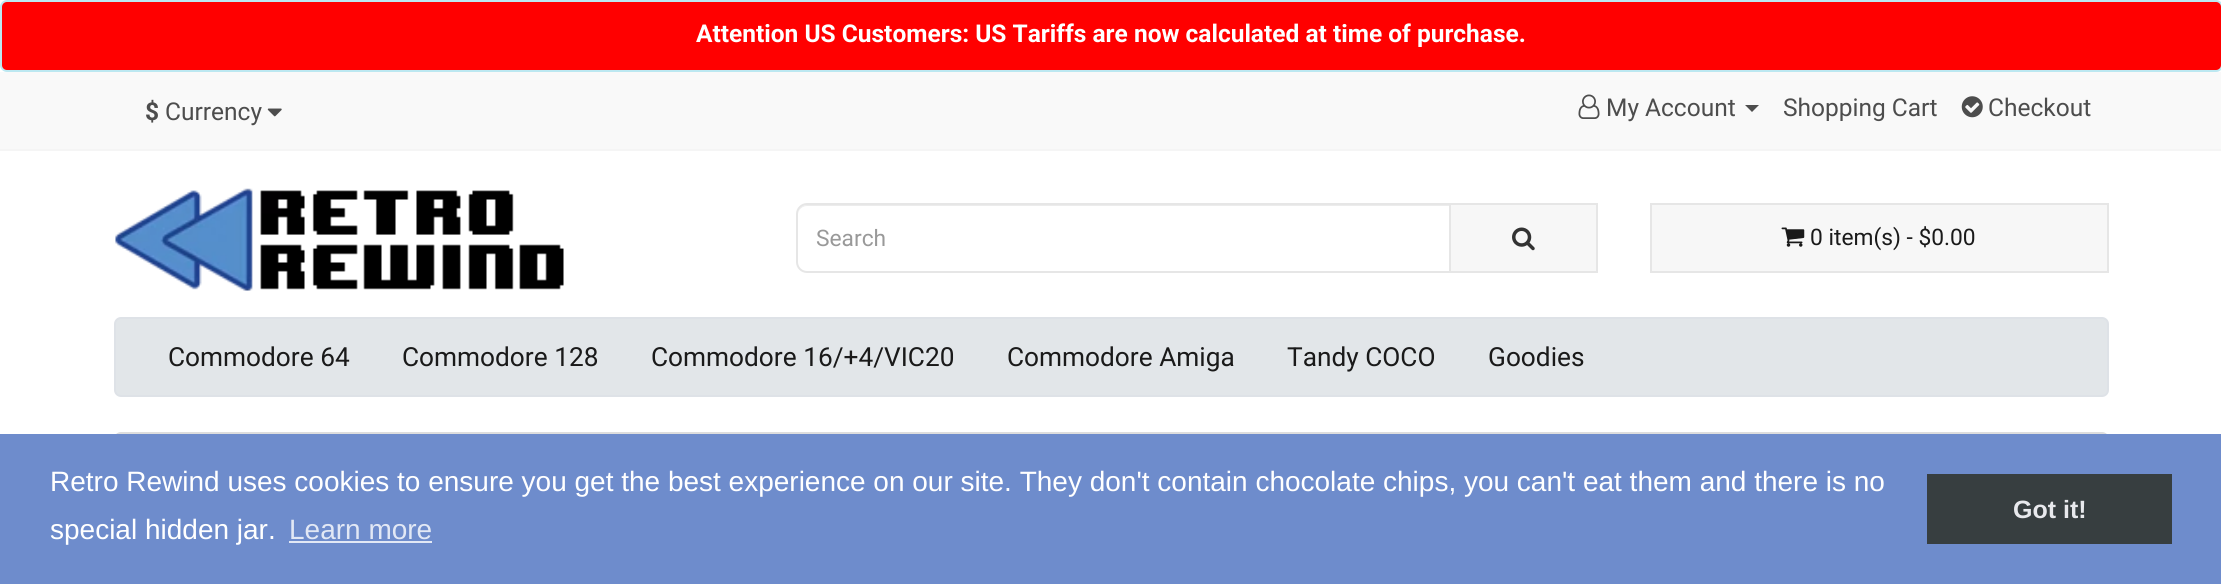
import math
import cairo

surface = cairo.ImageSurface(cairo.Format.RGB24, 2221, 584)
ctx = cairo.Context(surface)
options = cairo.FontOptions()
options.set_hint_metrics(cairo.HintMetrics.OFF)
options.set_hint_style(cairo.HintStyle.NONE)
ctx.set_font_options(options)
ctx.set_miter_limit(4)


def ink(r, g, b):
    ctx.set_source_rgb(r / 255, g / 255, b / 255)


def write(x, y, s, family, size, color, bold=False, italic=False):
    ctx.select_font_face(family, cairo.FontSlant.ITALIC if italic else cairo.FontSlant.NORMAL, cairo.FontWeight.BOLD if bold else cairo.FontWeight.NORMAL)
    ctx.set_font_size(size)
    ink(*color)
    ctx.move_to(x, y)
    ctx.show_text(s)


def block(x, y, w, h, *color):
    ink(*color)
    ctx.rectangle(x, y, w, h)
    ctx.fill()


def round_path(x, y, w, h, r):
    ctx.new_sub_path()
    for i, (u, v) in enumerate([(x + w - r, y + h - r), (x + r, y + h - r), (x + r, y + r), (x + w - r, y + r)]):
        ctx.arc(u, v, r, i * math.pi / 2, (i + 1) * math.pi / 2)
    ctx.close_path()


def paste(path, x, y, w, h):
    ctx.save()
    ctx.set_source_surface(cairo.ImageSurface.create_from_png(path), x, y)
    ctx.rectangle(x, y, w, h)
    ctx.fill()
    ctx.restore()


s1 = dict(family="Roboto", size=24.5, color=(255, 255, 255), bold=True)
s2 = dict(family="Roboto", size=24.5, color=(77, 77, 77), bold=True)
s3 = dict(family="Roboto", size=24.5, color=(77, 77, 77))
s4 = dict(family="Roboto", size=22.75, color=(153, 153, 153))
s5 = dict(family="Roboto", size=22.75, color=(26, 26, 26))
s6 = dict(family="Roboto", size=26.25, color=(26, 26, 26))
s7 = dict(family="Liberation Sans", size=28, color=(255, 255, 255))
s8 = dict(family="Liberation Sans", size=28, color=(226, 232, 245))
s9 = dict(family="Liberation Sans", size=25, color=(232, 233, 237), bold=True)

ink(255, 255, 255)
ctx.paint()
ink(255, 0, 0)
round_path(1, 1, 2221, 70, 6)
ctx.fill_preserve()
ink(188, 232, 241)
ctx.stroke()
write(696, 42, "Attention US Customers: US Tariffs are now calculated at time of purchase.", **s1)
block(0, 72, 2221, 77, 249, 249, 249)
block(0, 149, 2221, 2, 245, 245, 245)
write(145, 120, "$", **s2)
write(165, 120, "Currency", **s3)
paste("pic1.png", 267, 108, 15, 9)
paste("pic2.png", 1578, 94, 22, 25)
write(1606, 116, "My Account", **s3)
ctx.new_path()
ctx.move_to(1745, 105)
ctx.line_to(1759, 105)
ctx.line_to(1752, 112)
ctx.close_path()
ctx.fill()
write(1783, 116, "Shopping Cart", **s3)
paste("pic3.png", 1961, 96, 22, 22)
write(1988, 116, "Checkout", **s3)
paste("pic4.png", 115, 188, 449, 103)
ink(236, 236, 236)
ctx.new_path()
ctx.move_to(807, 206)
ctx.line_to(1449, 206)
ctx.line_to(1449, 205)
ctx.line_to(807, 205)
ctx.curve_to(801, 205, 798, 210, 798, 215)
ctx.curve_to(798, 210, 802, 206, 807, 206)
ctx.close_path()
ctx.fill()
ctx.new_path()
ctx.move_to(807, 204)
ctx.line_to(1450, 204)
ctx.line_to(1450, 272)
ctx.line_to(807, 272)
ctx.curve_to(801.5, 272, 797, 267.5, 797, 262)
ctx.line_to(797, 214)
ctx.curve_to(797, 208.5, 801.5, 204, 807, 204)
ctx.close_path()
ink(230, 230, 230)
ctx.stroke()
write(816, 246, "Search", **s4)
ink(247, 247, 247)
ctx.rectangle(1450, 204, 147, 68)
ctx.fill_preserve()
ink(230, 230, 230)
ctx.stroke()
paste("pic5.png", 1512, 227, 23, 24)
ink(247, 247, 247)
ctx.rectangle(1651, 204, 457, 68)
ctx.fill_preserve()
ink(230, 230, 230)
ctx.stroke()
paste("pic6.png", 1781, 227, 24, 20)
write(1810, 245, "0 item(s) - $0.00", **s5)
ink(226, 230, 233)
round_path(115, 318, 1993, 78, 6)
ctx.fill_preserve()
ink(222, 226, 231)
ctx.stroke()
write(168, 366, "Commodore 64", **s6)
write(402, 366, "Commodore 128", **s6)
write(651, 366, "Commodore 16/+4/VIC20", **s6)
write(1007, 366, "Commodore Amiga", **s6)
write(1287, 366, "Tandy COCO", **s6)
write(1488, 366, "Goodies", **s6)
round_path(115, 433, 1993, 65, 6)
ink(221, 221, 221)
ctx.stroke()
block(0, 434, 2221, 150, 110, 140, 204)
write(50, 491, "Retro Rewind uses cookies to ensure you get the best experience on our site. They don't contain chocolate chips, you can't eat them and there is no", **s7)
write(50, 539, "special hidden jar.", **s7)
write(289, 539, "Learn more", **s8)
block(289, 541, 143, 2, 226, 232, 245)
block(1927, 474, 245, 70, 55, 62, 64)
write(2013, 518, "Got it!", **s9)
surface.write_to_png("screenshot.png")
